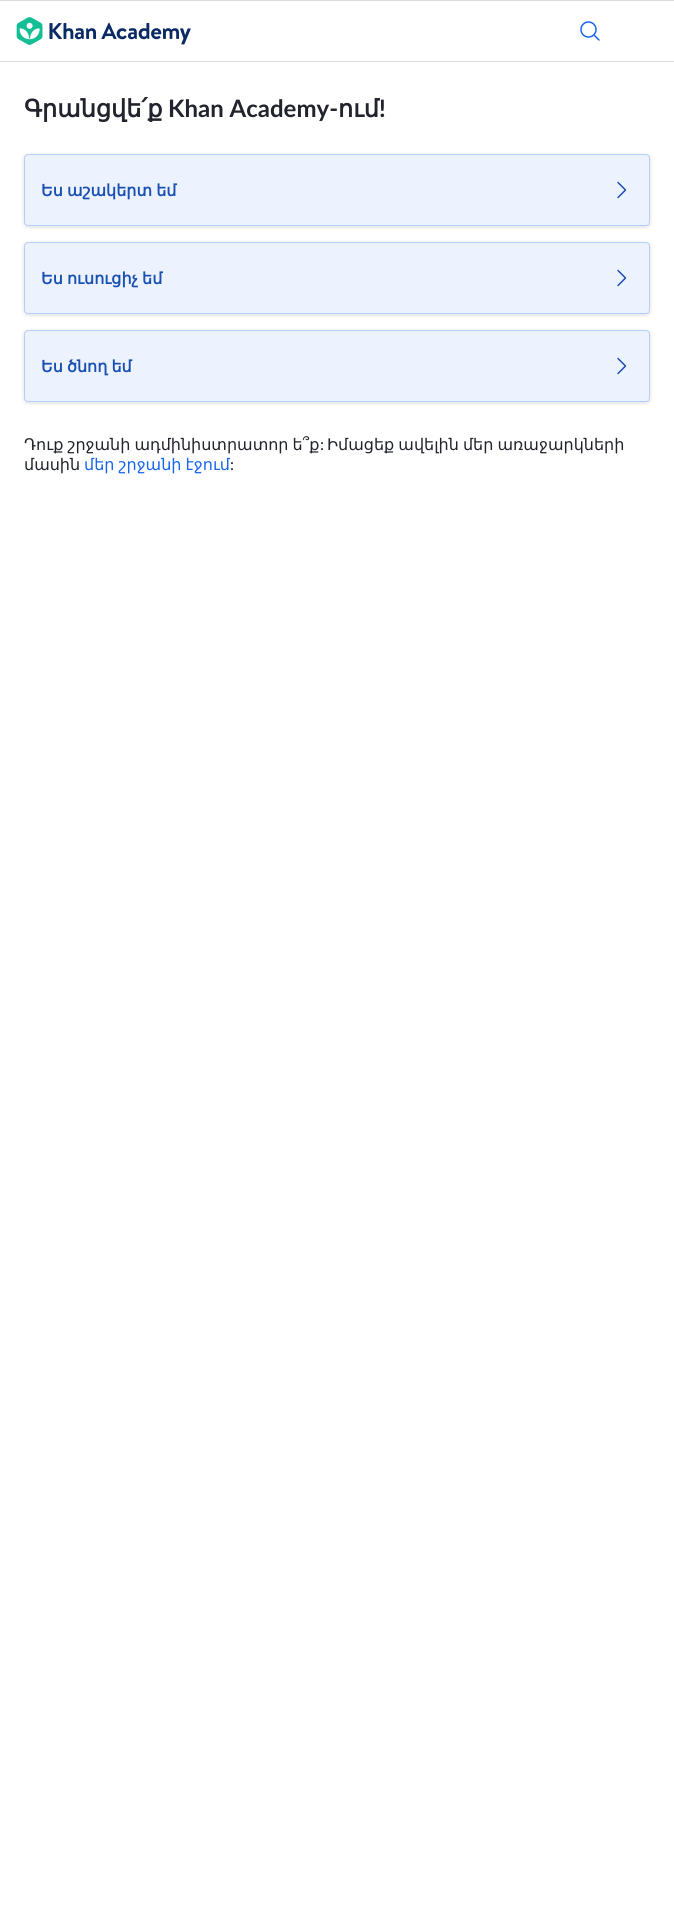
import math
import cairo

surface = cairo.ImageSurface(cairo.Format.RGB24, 674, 1912)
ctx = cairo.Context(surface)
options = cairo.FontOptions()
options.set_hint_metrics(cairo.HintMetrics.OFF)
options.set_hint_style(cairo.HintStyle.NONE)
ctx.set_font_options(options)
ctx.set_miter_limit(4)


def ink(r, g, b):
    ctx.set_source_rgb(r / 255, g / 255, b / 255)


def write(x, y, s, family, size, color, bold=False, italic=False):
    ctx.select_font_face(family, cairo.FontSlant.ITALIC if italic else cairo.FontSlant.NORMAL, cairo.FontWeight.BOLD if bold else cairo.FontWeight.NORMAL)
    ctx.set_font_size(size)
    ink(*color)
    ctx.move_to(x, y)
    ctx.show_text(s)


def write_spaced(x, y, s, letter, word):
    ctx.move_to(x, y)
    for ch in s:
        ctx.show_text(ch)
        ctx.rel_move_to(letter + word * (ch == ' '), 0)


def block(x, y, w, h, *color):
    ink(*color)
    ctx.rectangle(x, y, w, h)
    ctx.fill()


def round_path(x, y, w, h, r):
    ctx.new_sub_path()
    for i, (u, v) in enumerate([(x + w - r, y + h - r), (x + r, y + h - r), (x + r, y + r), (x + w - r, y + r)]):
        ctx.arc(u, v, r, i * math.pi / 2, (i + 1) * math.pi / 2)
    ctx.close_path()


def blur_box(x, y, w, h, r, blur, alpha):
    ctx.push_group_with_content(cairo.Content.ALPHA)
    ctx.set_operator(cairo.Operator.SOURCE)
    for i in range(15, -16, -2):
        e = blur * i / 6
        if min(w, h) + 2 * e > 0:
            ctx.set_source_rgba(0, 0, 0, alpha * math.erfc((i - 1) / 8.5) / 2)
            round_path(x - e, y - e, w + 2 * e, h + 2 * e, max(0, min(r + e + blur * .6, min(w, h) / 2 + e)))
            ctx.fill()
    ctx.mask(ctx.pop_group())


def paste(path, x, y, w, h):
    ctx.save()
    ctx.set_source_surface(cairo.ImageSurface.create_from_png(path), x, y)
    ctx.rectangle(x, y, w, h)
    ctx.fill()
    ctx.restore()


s1 = dict(family="DejaVu Sans", size=24, color=(33, 36, 44), bold=True)
s2 = dict(family="Lato", size=24, color=(33, 36, 44), bold=True)
s3 = dict(family="Lato", size=16, color=(33, 36, 44))
s4 = dict(family="DejaVu Sans", size=16, color=(33, 36, 44))

ink(255, 255, 255)
ctx.paint()
block(0, 0, 674, 1, 219, 220, 221)
block(0, 61, 674, 1, 219, 220, 221)
paste("pic1.png", 16, 17, 175, 28)
paste("pic2.png", 580, 21, 20, 20)
write(24, 117, "Գրանցվե՛ք", **s1)
write(168, 117, "Khan Academy-", **s2)
write(338, 117, "ում", **s1)
write(379, 117, "!", **s2)
ink(33, 36, 44)
blur_box(24, 155, 626, 72, 4, 2, 0.16)
ink(237, 243, 254)
round_path(24.5, 154.5, 625, 71, 3.5)
ctx.fill_preserve()
ink(181, 206, 251)
ctx.set_line_width(1)
ctx.stroke()
ctx.select_font_face("DejaVu Sans", cairo.FontSlant.NORMAL, cairo.FontWeight.BOLD)
ctx.set_font_size(16)
ink(27, 80, 179)
write_spaced(41, 196, "Ես աշակերտ եմ", 0, -1)
paste("pic3.png", 617, 181, 10, 18)
ink(33, 36, 44)
blur_box(24, 243, 626, 72, 4, 2, 0.16)
ink(237, 243, 254)
round_path(24.5, 242.5, 625, 71, 3.5)
ctx.fill_preserve()
ink(181, 206, 251)
ctx.stroke()
ink(27, 80, 179)
write_spaced(41, 284, "Ես ուսուցիչ եմ", 0, -1)
paste("pic3.png", 617, 269, 10, 18)
ink(33, 36, 44)
blur_box(24, 331, 626, 72, 4, 2, 0.16)
ink(237, 243, 254)
round_path(24.5, 330.5, 625, 71, 3.5)
ctx.fill_preserve()
ink(181, 206, 251)
ctx.stroke()
ink(27, 80, 179)
write_spaced(41, 372, "Ես ծնող եմ", 0, -1)
paste("pic3.png", 617, 357, 10, 18)
ctx.select_font_face("DejaVu Sans")
ink(33, 36, 44)
write_spaced(24, 450, "Դուք շրջանի ադմինիստրատոր ե՞ք", 0, -1)
write(320, 450, ":", **s3)
ctx.select_font_face("DejaVu Sans")
write_spaced(327, 450, "Իմացեք ավելին մեր առաջարկների", 0, -1)
write(24, 470, "մասին", **s4)
ink(24, 101, 242)
write_spaced(84, 470, "մեր շրջանի էջում", 0, -1)
write(230, 470, ":", **s3)
surface.write_to_png("screenshot.png")
